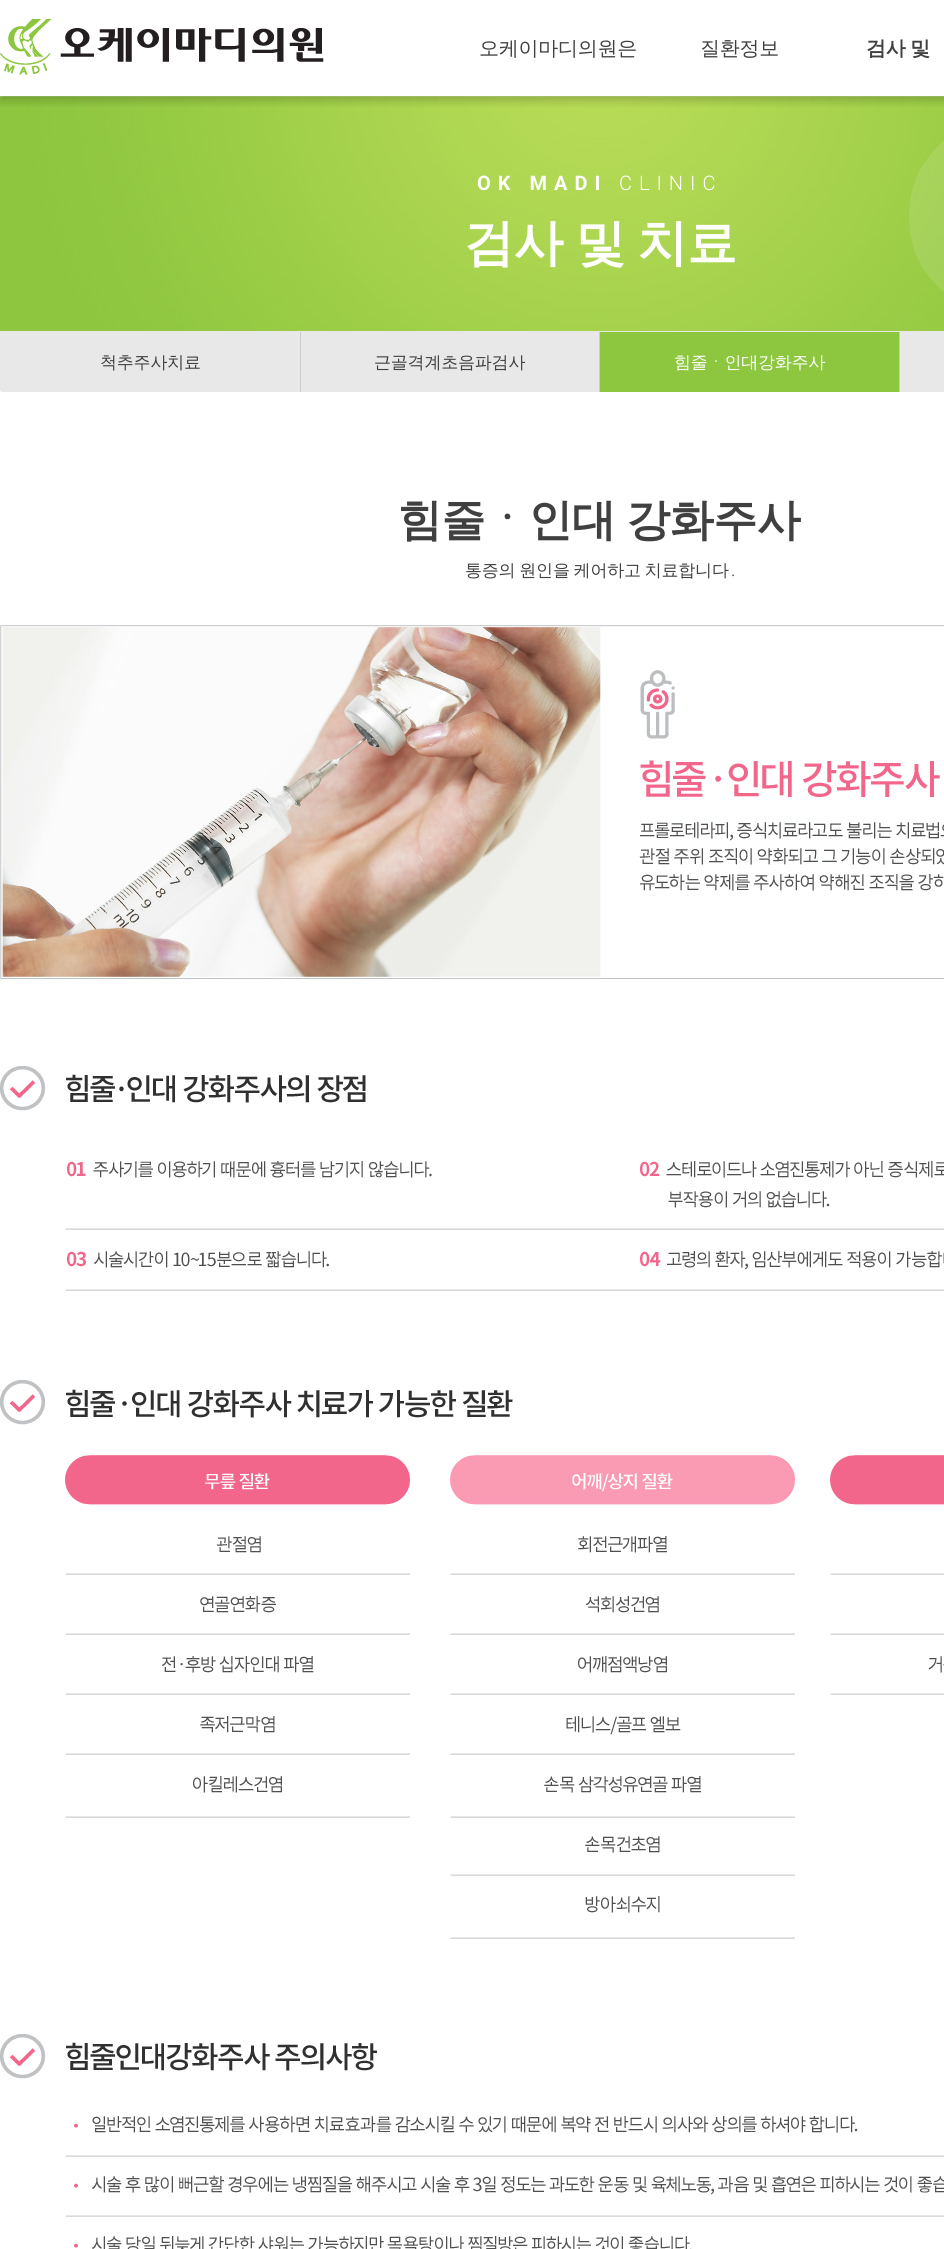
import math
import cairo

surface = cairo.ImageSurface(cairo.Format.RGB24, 944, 2249)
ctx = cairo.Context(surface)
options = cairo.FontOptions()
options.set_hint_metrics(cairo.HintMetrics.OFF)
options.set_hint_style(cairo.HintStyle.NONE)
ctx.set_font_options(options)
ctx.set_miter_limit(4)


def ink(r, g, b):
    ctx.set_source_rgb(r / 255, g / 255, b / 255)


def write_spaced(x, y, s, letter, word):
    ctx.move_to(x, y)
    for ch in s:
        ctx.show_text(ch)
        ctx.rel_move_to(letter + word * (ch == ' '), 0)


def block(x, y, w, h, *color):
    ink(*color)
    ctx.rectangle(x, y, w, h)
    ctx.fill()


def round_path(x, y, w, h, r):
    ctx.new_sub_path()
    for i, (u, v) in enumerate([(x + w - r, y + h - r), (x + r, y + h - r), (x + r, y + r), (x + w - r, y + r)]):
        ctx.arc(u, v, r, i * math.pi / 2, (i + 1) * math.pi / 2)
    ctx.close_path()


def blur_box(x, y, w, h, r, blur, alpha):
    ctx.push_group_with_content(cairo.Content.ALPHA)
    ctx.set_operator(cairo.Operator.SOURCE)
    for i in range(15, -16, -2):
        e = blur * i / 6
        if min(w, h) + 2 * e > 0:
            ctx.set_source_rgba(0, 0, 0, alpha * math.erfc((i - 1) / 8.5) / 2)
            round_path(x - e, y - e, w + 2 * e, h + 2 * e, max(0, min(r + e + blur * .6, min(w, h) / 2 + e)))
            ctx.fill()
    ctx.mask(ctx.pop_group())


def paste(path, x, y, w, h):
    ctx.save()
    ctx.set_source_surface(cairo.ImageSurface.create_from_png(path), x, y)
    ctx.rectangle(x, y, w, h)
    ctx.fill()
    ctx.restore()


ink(255, 255, 255)
ctx.paint()
paste("pic2.png", 0, 96, 944, 235)
ctx.save()
ctx.rectangle(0, 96, 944, 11)
ctx.clip()
ink(0, 0, 0)
blur_box(0, 5, 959, 96, 0, 5, 0.2)
ctx.restore()
paste("pic1.png", 0, 19, 324, 56)
ctx.select_font_face("WenQuanYi Zen Hei Medium")
ctx.set_font_size(20)
ink(64, 64, 64)
write_spaced(479, 55, "오케이마디의원은", -0.25, 0)
write_spaced(700, 55, "질환정보", -0.25, 0)
ctx.select_font_face("WenQuanYi Zen Hei", cairo.FontSlant.NORMAL, cairo.FontWeight.BOLD)
write_spaced(866, 55, "검사 및", -0.25, -1)
ctx.select_font_face("Roboto", cairo.FontSlant.NORMAL, cairo.FontWeight.BOLD)
ink(255, 255, 255)
write_spaced(477, 190, "OK MADI", 7, 0)
ctx.select_font_face("Roboto Light")
write_spaced(619, 190, "CLINIC", 7, 0)
ctx.select_font_face("WenQuanYi Zen Hei", cairo.FontSlant.NORMAL, cairo.FontWeight.BOLD)
ctx.set_font_size(50)
write_spaced(464, 260, "검사 및 치료", -0.5, -2)
ctx.rectangle(0.5, 331.5, 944, 59)
ink(232, 232, 232)
ctx.set_line_width(1)
ctx.stroke()
block(300, 332, 1, 60, 204, 204, 204)
block(1, 332, 299, 60, 232, 232, 232)
ctx.select_font_face("WenQuanYi Zen Hei Medium")
ctx.set_font_size(17)
ink(64, 64, 64)
write_spaced(100, 368, "척추주사치료", -0.2, 0)
block(599, 332, 1, 60, 204, 204, 204)
block(301, 332, 298, 60, 232, 232, 232)
ink(64, 64, 64)
write_spaced(374, 368, "근골격계초음파검사", -0.2, 0)
block(899, 332, 1, 60, 204, 204, 204)
block(600, 332, 299, 60, 141, 198, 63)
ink(255, 255, 255)
write_spaced(674, 368, "힘줄ㆍ인대강화주사", -0.2, 0)
block(900, 332, 44, 60, 232, 232, 232)
ctx.select_font_face("WenQuanYi Zen Hei", cairo.FontSlant.NORMAL, cairo.FontWeight.BOLD)
ctx.set_font_size(44)
ink(64, 64, 64)
write_spaced(398, 535, "힘줄ㆍ인대 강화주사", -0.5, -2)
ctx.select_font_face("WenQuanYi Zen Hei Medium")
ctx.set_font_size(17)
write_spaced(465, 576, "통증의 원인을 케어하고 치료합니다", -0.2, -1)
ctx.select_font_face("Noto Sans Light")
write_spaced(731, 576, ".", -0.2, 0)
paste("pic3.png", 0, 625, 944, 1624)
surface.write_to_png("screenshot.png")
